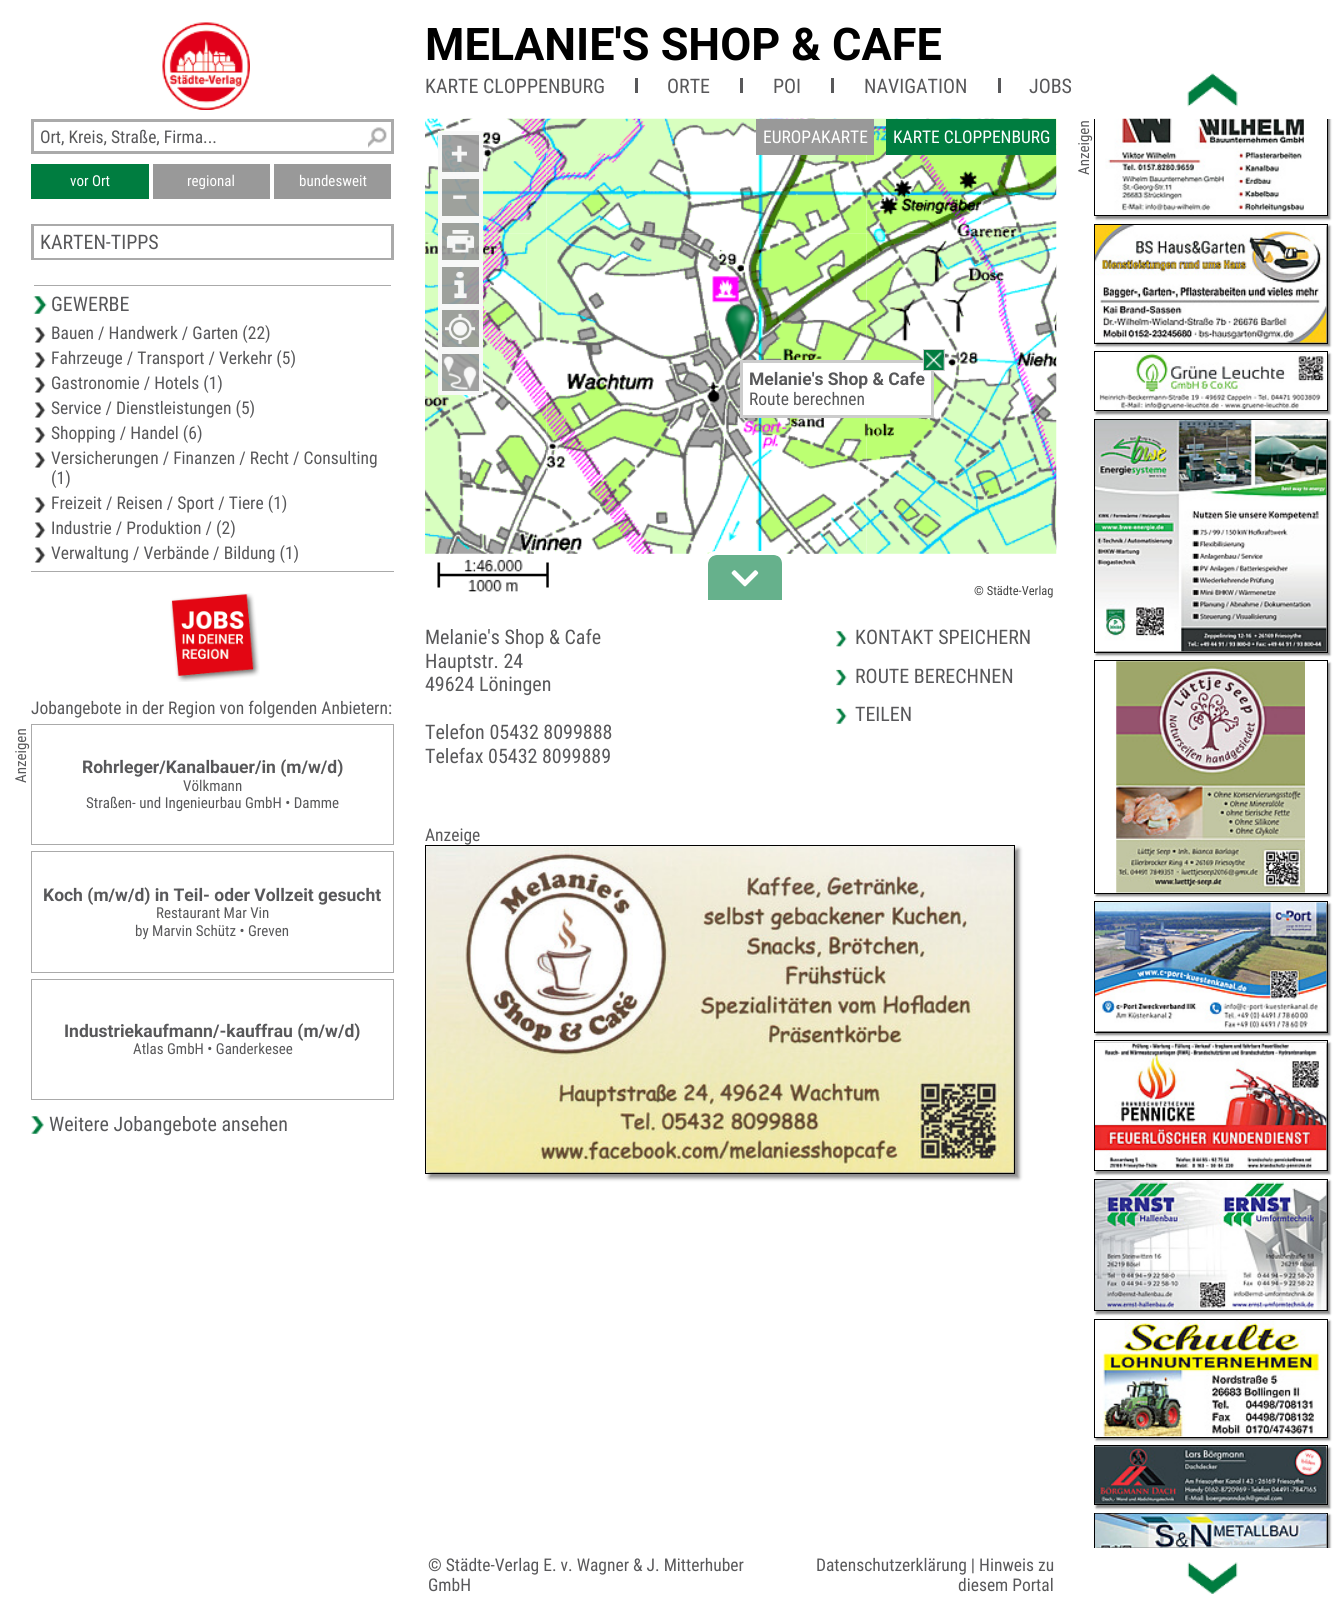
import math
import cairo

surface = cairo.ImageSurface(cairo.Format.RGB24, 1337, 1607)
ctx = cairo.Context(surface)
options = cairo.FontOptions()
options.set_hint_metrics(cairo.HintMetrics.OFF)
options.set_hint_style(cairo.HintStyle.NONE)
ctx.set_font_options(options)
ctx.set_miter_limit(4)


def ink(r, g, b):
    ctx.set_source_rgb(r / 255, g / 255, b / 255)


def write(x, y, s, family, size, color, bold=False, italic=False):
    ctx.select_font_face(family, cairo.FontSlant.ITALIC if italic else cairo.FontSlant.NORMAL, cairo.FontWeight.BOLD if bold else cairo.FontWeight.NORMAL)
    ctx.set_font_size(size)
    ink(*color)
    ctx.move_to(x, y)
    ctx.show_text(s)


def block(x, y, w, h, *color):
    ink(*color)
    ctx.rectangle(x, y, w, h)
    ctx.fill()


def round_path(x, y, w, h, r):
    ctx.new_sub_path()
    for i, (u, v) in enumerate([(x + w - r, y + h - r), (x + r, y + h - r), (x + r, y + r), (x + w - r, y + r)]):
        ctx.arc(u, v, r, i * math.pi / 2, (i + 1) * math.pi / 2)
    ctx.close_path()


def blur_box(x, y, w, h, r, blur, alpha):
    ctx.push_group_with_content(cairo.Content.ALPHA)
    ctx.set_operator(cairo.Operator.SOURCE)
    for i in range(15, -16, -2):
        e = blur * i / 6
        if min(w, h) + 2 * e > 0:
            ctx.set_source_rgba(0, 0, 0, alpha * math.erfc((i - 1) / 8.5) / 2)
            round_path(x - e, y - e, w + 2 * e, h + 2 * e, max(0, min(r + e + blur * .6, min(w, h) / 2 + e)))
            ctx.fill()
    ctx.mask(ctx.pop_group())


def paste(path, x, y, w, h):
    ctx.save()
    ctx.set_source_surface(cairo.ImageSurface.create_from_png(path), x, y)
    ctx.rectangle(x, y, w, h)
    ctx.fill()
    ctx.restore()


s1 = dict(family="Roboto", size=45, color=(0, 0, 0), bold=True)
s2 = dict(family="Roboto Condensed", size=20, color=(88, 88, 90))
s3 = dict(family="Roboto Condensed", size=17.5, color=(88, 88, 90))
s4 = dict(family="Roboto Condensed", size=15, color=(255, 255, 255))
s5 = dict(family="Roboto Condensed", size=15, color=(88, 88, 90))
s6 = dict(family="Roboto", size=17.5, color=(88, 88, 90), bold=True)
s7 = dict(family="Roboto Condensed", size=17.5, color=(255, 255, 255))
s8 = dict(family="Roboto", size=31, color=(247, 247, 247), bold=True)
s9 = dict(family="Roboto Condensed", size=12.5, color=(68, 68, 68))

ink(255, 255, 255)
ctx.paint()
paste("pic1.png", 162, 22, 88, 88)
write(425, 60, "MELANIE'S SHOP & CAFE", **s1)
write(425, 93, "KARTE CLOPPENBURG", **s2)
block(635, 78, 3, 15, 88, 88, 90)
write(667, 93, "ORTE", **s2)
block(740, 78, 3, 15, 88, 88, 90)
write(773, 93, "POI", **s2)
block(831, 78, 3, 15, 88, 88, 90)
write(864, 93, "NAVIGATION", **s2)
block(998, 78, 3, 15, 88, 88, 90)
write(1029, 93, "JOBS", **s2)
paste("pic2.png", 368, 127, 19, 21)
ctx.rectangle(32.5, 120.5, 360, 32)
ink(170, 170, 170)
ctx.set_line_width(3)
ctx.stroke()
write(40, 143, "Ort, Kreis, Straße, Firma...", **s3)
block(31, 164, 118, 35, 0, 125, 64)
write(70, 186, "vor Ort", **s4)
block(153, 164, 117, 35, 153, 153, 153)
write(187, 186, "regional", **s4)
block(274, 164, 117, 35, 153, 153, 153)
write(299, 186, "bundesweit", **s4)
ctx.rectangle(32.5, 225.5, 360, 33)
ink(170, 170, 170)
ctx.stroke()
block(34, 226, 357, 32, 255, 255, 255)
write(40, 249, "KARTEN-TIPPS", **s2)
paste("pic3.png", 33, 296, 14, 18)
block(34, 285, 357, 1, 170, 170, 170)
write(51, 311, "GEWERBE", **s2)
paste("pic4.png", 34, 327, 12, 16)
write(51, 339, "Bauen / Handwerk / Garten (22)", **s3)
paste("pic4.png", 34, 352, 12, 16)
write(51, 364, "Fahrzeuge / Transport / Verkehr (5)", **s3)
paste("pic4.png", 34, 377, 12, 16)
write(51, 389, "Gastronomie / Hotels (1)", **s3)
paste("pic4.png", 34, 402, 12, 16)
write(51, 414, "Service / Dienstleistungen (5)", **s3)
paste("pic4.png", 34, 427, 12, 16)
write(51, 439, "Shopping / Handel (6)", **s3)
paste("pic4.png", 34, 452, 12, 16)
write(51, 464, "Versicherungen / Finanzen / Recht / Consulting", **s3)
write(51, 484, "(1)", **s3)
paste("pic4.png", 34, 497, 12, 16)
write(51, 509, "Freizeit / Reisen / Sport / Tiere (1)", **s3)
paste("pic4.png", 34, 522, 12, 16)
write(51, 534, "Industrie / Produktion / (2)", **s3)
paste("pic4.png", 34, 547, 12, 16)
write(51, 559, "Verwaltung / Verbände / Bildung (1)", **s3)
write(31, 714, "Jobangebote in der Region von folgenden Anbietern:", **s3)
paste("pic5.png", 170, 593, 90, 89)
block(31, 571, 363, 1, 170, 170, 170)
ctx.save()
ctx.translate(26, 783)
ctx.rotate(-90 * math.pi / 180)
write(0, 0, "Anzeigen", **s5)
ctx.restore()
ctx.rectangle(31.5, 724.5, 362, 120)
ink(170, 170, 170)
ctx.set_line_width(1)
ctx.stroke()
write(82, 773, "Rohrleger/Kanalbauer/in (m/w/d)", **s6)
write(183, 791, "Völkmann", **s5)
write(86, 808, "Straßen- und Ingenieurbau GmbH • Damme", **s5)
ctx.rectangle(31.5, 851.5, 362, 121)
ink(170, 170, 170)
ctx.stroke()
write(43, 901, "Koch (m/w/d) in Teil- oder Vollzeit gesucht", **s6)
write(156, 918, "Restaurant Mar Vin", **s5)
write(135, 936, "by Marvin Schütz • Greven", **s5)
ctx.rectangle(31.5, 979.5, 362, 120)
ink(170, 170, 170)
ctx.stroke()
write(64, 1037, "Industriekaufmann/-kauffrau (m/w/d)", **s6)
write(133, 1054, "Atlas GmbH • Ganderkesee", **s5)
paste("pic6.png", 31, 1116, 13, 18)
write(49, 1131, "Weitere Jobangebote ansehen", **s2)
paste("pic7.png", 425, 118, 122, 116)
block(546, 119, 1, 115, 255, 255, 255)
paste("pic8.png", 546, 118, 321, 116)
block(866, 155, 1, 79, 255, 255, 255)
paste("pic9.png", 866, 118, 191, 116)
block(756, 119, 118, 36, 153, 153, 153)
write(763, 143, "EUROPAKARTE", **s7)
block(886, 119, 170, 36, 0, 125, 64)
write(893, 143, "KARTE CLOPPENBURG", **s7)
paste("pic10.png", 425, 233, 122, 321)
block(546, 234, 1, 315, 255, 255, 255)
paste("pic11.png", 546, 233, 321, 321)
block(866, 234, 1, 320, 255, 255, 255)
paste("pic12.png", 866, 233, 191, 321)
ctx.set_source_rgba(0.6, 0.6, 0.6, 0.92)
ctx.rectangle(438, 131, 45, 45)
ctx.fill()
ctx.rectangle(440, 133, 41, 41)
ctx.set_source_rgba(1, 1, 1, 0.92)
ctx.set_line_width(4)
ctx.stroke()
write(451, 164, "+", **s8)
ctx.set_source_rgba(0.6, 0.6, 0.6, 0.92)
ctx.rectangle(438, 175, 45, 45)
ctx.fill()
ctx.rectangle(440, 177, 41, 41)
ctx.set_source_rgba(1, 1, 1, 0.92)
ctx.stroke()
write(451, 208, "−", **s8)
ctx.set_source_rgba(0.6, 0.6, 0.6, 0.92)
ctx.rectangle(438, 219, 45, 45)
ctx.fill()
ctx.rectangle(440, 221, 41, 41)
ctx.set_source_rgba(1, 1, 1, 0.92)
ctx.stroke()
paste("pic13.png", 446, 230, 29, 23)
ctx.set_source_rgba(0.6, 0.6, 0.6, 0.92)
ctx.rectangle(438, 263, 45, 45)
ctx.fill()
ctx.rectangle(440, 265, 41, 41)
ctx.set_source_rgba(1, 1, 1, 0.92)
ctx.stroke()
paste("pic14.png", 454, 271, 13, 28)
ctx.set_source_rgba(0.6, 0.6, 0.6, 0.92)
ctx.rectangle(438, 306, 45, 45)
ctx.fill()
ctx.rectangle(440, 308, 41, 41)
ctx.set_source_rgba(1, 1, 1, 0.92)
ctx.stroke()
paste("pic15.png", 445, 313, 30, 31)
paste("pic16.png", 725, 303, 30, 56)
ctx.set_source_rgba(0.6, 0.6, 0.6, 0.92)
ctx.rectangle(438, 350, 45, 45)
ctx.fill()
ctx.rectangle(440, 352, 41, 41)
ctx.set_source_rgba(1, 1, 1, 0.92)
ctx.stroke()
paste("pic17.png", 443, 356, 34, 34)
ink(255, 255, 255)
ctx.rectangle(741.5, 361.5, 191, 55)
ctx.fill_preserve()
ink(204, 204, 204)
ctx.set_line_width(3)
ctx.stroke()
paste("pic18.png", 924, 350, 20, 20)
ctx.rectangle(923.5, 349.5, 21, 21)
ctx.set_line_width(1)
ctx.stroke()
write(749, 385, "Melanie's Shop & Cafe", **s6)
write(749, 405, "Route berechnen", **s3)
paste("pic19.png", 437, 559, 112, 33)
ink(102, 177, 140)
ctx.new_path()
ctx.move_to(717, 555)
ctx.line_to(774, 555)
ctx.curve_to(779, 555, 783, 559, 783, 564)
ctx.line_to(783, 600)
ctx.line_to(708, 600)
ctx.line_to(708, 564)
ctx.curve_to(708, 559, 712, 555, 717, 555)
ctx.close_path()
ctx.fill()
ink(255, 255, 255)
ctx.set_fill_rule(cairo.FillRule.EVEN_ODD)
ctx.new_path()
ctx.move_to(716, 551)
ctx.line_to(774, 551)
ctx.curve_to(781, 551, 786, 557, 786, 564)
ctx.line_to(786, 600)
ctx.line_to(704, 600)
ctx.line_to(704, 564)
ctx.curve_to(704, 557, 709, 551, 716, 551)
ctx.close_path()
ctx.move_to(716, 555)
ctx.line_to(774, 555)
ctx.curve_to(779, 555, 782, 559, 782, 564)
ctx.line_to(782, 600)
ctx.line_to(708, 600)
ctx.line_to(708, 564)
ctx.curve_to(708, 559, 711, 555, 716, 555)
ctx.close_path()
ctx.fill()
paste("pic20.png", 731, 570, 28, 17)
write(974, 595, "© Städte-Verlag", **s9)
write(425, 644, "Melanie's Shop & Cafe", **s2)
write(425, 668, "Hauptstr. 24", **s2)
write(425, 691, "49624 Löningen", **s2)
write(425, 739, "Telefon 05432 8099888", **s2)
write(425, 763, "Telefax 05432 8099889", **s2)
paste("pic21.png", 836, 631, 11, 16)
write(855, 644, "KONTAKT SPEICHERN", **s2)
paste("pic22.png", 836, 669, 11, 17)
write(855, 683, "ROUTE BERECHNEN", **s2)
paste("pic23.png", 836, 708, 11, 16)
write(855, 721, "TEILEN", **s2)
write(425, 841, "Anzeige", **s3)
ink(136, 136, 136)
blur_box(429, 849, 590, 329, 0, 2, 1)
ctx.rectangle(425.5, 845.5, 589, 328)
ink(0, 0, 0)
ctx.stroke()
paste("pic24.png", 426, 846, 588, 327)
paste("pic25.png", 1187, 73, 51, 34)
ctx.save()
ctx.translate(1089, 175)
ctx.rotate(-90 * math.pi / 180)
write(0, 0, "Anzeigen", **s5)
ctx.restore()
ctx.save()
ctx.set_fill_rule(cairo.FillRule.WINDING)
ctx.rectangle(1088, 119, 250, 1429)
ctx.clip()
ctx.set_fill_rule(cairo.FillRule.EVEN_ODD)
ctx.new_path()
ctx.move_to(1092, 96)
ctx.line_to(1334, 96)
ctx.line_to(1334, 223)
ctx.line_to(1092, 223)
ctx.close_path()
ctx.move_to(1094, 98)
ctx.line_to(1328, 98)
ctx.line_to(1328, 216)
ctx.line_to(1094, 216)
ctx.close_path()
ctx.clip()
ink(136, 136, 136)
blur_box(1096, 100, 234, 119, 0, 1, 1)
ctx.restore()
ctx.save()
ctx.set_fill_rule(cairo.FillRule.WINDING)
ctx.rectangle(1088, 119, 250, 1429)
ctx.clip()
ctx.rectangle(1094.5, 98.5, 233, 117)
ink(0, 0, 0)
ctx.stroke()
ctx.restore()
paste("pic26.png", 1105, 118, 200, 97)
ink(136, 136, 136)
blur_box(1096, 226, 234, 120, 0, 1, 1)
ctx.rectangle(1094.5, 224.5, 233, 119)
ink(0, 0, 0)
ctx.stroke()
paste("pic27.png", 1095, 225, 232, 118)
ctx.save()
ctx.new_path()
ctx.move_to(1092, 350)
ctx.line_to(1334, 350)
ctx.line_to(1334, 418)
ctx.line_to(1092, 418)
ctx.close_path()
ctx.move_to(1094, 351)
ctx.line_to(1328, 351)
ctx.line_to(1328, 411)
ctx.line_to(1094, 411)
ctx.close_path()
ctx.clip()
ink(136, 136, 136)
blur_box(1096, 354, 234, 60, 0, 1, 1)
ctx.restore()
ctx.rectangle(1094.5, 351.5, 233, 59)
ctx.stroke()
paste("pic28.png", 1099, 352, 225, 58)
ink(136, 136, 136)
blur_box(1096, 421, 234, 234, 0, 1, 1)
ctx.rectangle(1094.5, 419.5, 233, 233)
ink(0, 0, 0)
ctx.stroke()
paste("pic29.png", 1095, 420, 232, 232)
ctx.save()
ctx.new_path()
ctx.move_to(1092, 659)
ctx.line_to(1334, 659)
ctx.line_to(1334, 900)
ctx.line_to(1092, 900)
ctx.close_path()
ctx.move_to(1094, 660)
ctx.line_to(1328, 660)
ctx.line_to(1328, 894)
ctx.line_to(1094, 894)
ctx.close_path()
ctx.clip()
ink(136, 136, 136)
blur_box(1096, 663, 234, 233, 0, 1, 1)
ctx.restore()
ctx.rectangle(1094.5, 660.5, 233, 233)
ctx.stroke()
paste("pic30.png", 1116, 661, 189, 232)
ink(136, 136, 136)
blur_box(1096, 904, 234, 131, 0, 1, 1)
ctx.rectangle(1094.5, 901.5, 233, 131)
ink(0, 0, 0)
ctx.stroke()
paste("pic31.png", 1095, 902, 232, 129)
ink(136, 136, 136)
blur_box(1096, 1043, 234, 131, 0, 1, 1)
ctx.rectangle(1094.5, 1040.5, 233, 130)
ink(0, 0, 0)
ctx.stroke()
paste("pic32.png", 1095, 1043, 232, 127)
ink(136, 136, 136)
blur_box(1096, 1181, 234, 133, 0, 1, 1)
ctx.rectangle(1094.5, 1179.5, 233, 131)
ink(0, 0, 0)
ctx.stroke()
paste("pic33.png", 1095, 1180, 232, 130)
ctx.save()
ctx.new_path()
ctx.move_to(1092, 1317)
ctx.line_to(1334, 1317)
ctx.line_to(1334, 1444)
ctx.line_to(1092, 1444)
ctx.close_path()
ctx.move_to(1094, 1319)
ctx.line_to(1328, 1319)
ctx.line_to(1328, 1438)
ctx.line_to(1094, 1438)
ctx.close_path()
ctx.clip()
ink(136, 136, 136)
blur_box(1096, 1321, 234, 119, 0, 1, 1)
ctx.restore()
ctx.rectangle(1094.5, 1319.5, 233, 118)
ctx.stroke()
paste("pic34.png", 1095, 1320, 229, 117)
ink(136, 136, 136)
blur_box(1096, 1448, 234, 60, 0, 1, 1)
ctx.rectangle(1094.5, 1445.5, 233, 59)
ink(0, 0, 0)
ctx.stroke()
paste("pic35.png", 1095, 1446, 232, 58)
paste("pic37.png", 1187, 1562, 51, 32)
ctx.save()
ctx.set_fill_rule(cairo.FillRule.WINDING)
ctx.rectangle(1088, 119, 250, 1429)
ctx.clip()
ink(136, 136, 136)
blur_box(1096, 1515, 234, 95, 0, 1, 1)
ctx.restore()
ctx.save()
ctx.set_fill_rule(cairo.FillRule.WINDING)
ctx.rectangle(1088, 119, 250, 1429)
ctx.clip()
ctx.rectangle(1094.5, 1513.5, 233, 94)
ctx.stroke()
ctx.restore()
paste("pic36.png", 1095, 1513, 232, 35)
write(428, 1571, "© Städte-Verlag E. v. Wagner & J. Mitterhuber", **s3)
write(428, 1591, "GmbH", **s3)
write(816, 1571, "Datenschutzerklärung | Hinweis zu", **s3)
write(958, 1591, "diesem Portal", **s3)
surface.write_to_png("screenshot.png")
